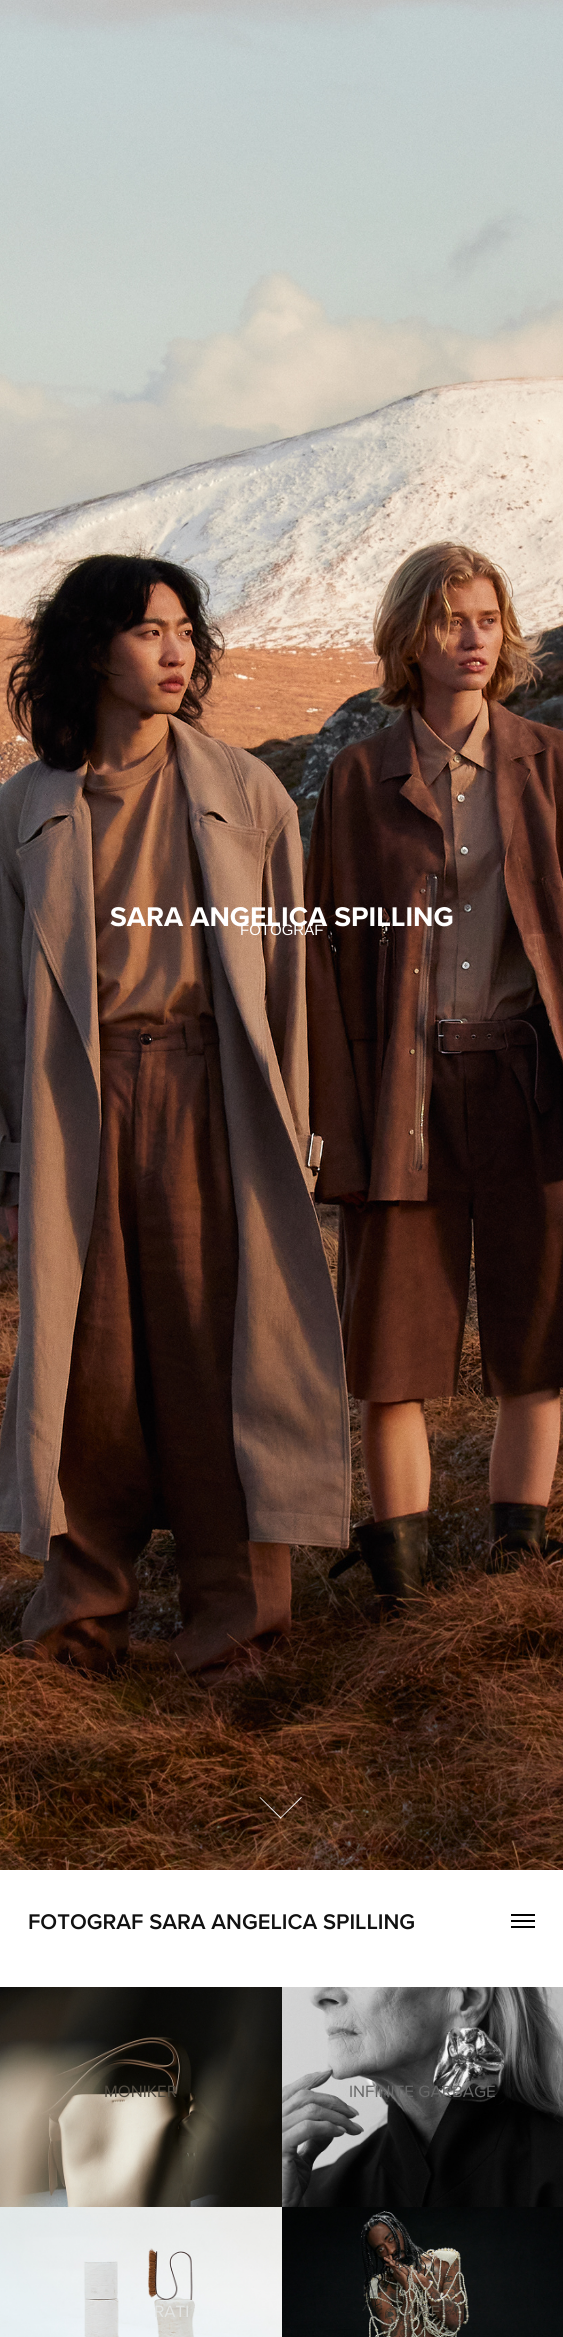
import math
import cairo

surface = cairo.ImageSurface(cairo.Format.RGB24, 563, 2337)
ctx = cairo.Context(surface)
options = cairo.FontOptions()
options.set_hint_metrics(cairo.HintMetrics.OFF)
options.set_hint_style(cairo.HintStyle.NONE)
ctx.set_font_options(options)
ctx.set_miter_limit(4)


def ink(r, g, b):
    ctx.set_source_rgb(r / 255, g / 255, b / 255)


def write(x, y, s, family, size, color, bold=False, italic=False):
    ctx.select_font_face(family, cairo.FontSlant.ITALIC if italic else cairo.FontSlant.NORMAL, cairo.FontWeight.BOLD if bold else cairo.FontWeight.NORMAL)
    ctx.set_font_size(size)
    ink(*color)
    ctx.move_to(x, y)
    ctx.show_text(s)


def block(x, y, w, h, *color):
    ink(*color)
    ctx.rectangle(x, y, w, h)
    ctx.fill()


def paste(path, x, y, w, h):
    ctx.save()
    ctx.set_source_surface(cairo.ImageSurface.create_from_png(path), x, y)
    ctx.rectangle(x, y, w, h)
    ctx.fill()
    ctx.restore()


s1 = dict(family="Proxima Nova", size=28, color=(255, 255, 255), bold=True)
s2 = dict(family="Liberation Sans", size=15, color=(255, 255, 255))
s3 = dict(family="Proxima Nova SemiBold", size=22, color=(17, 17, 17))
s4 = dict(family="Proxima Nova", size=17, color=(78, 72, 62))
s5 = dict(family="Proxima Nova", size=17, color=(103, 103, 103))
s6 = dict(family="Proxima Nova", size=17, color=(227, 229, 228))
s7 = dict(family="Proxima Nova", size=17, color=(93, 85, 74))

ink(255, 255, 255)
ctx.paint()
paste("pic1.png", 0, 0, 563, 1870)
write(110, 926, "SARA ANGELICA SPILLING", **s1)
write(240, 935, "FOTOGRAF", **s2)
ctx.new_path()
ctx.move_to(301, 1797)
ctx.line_to(302, 1797.5)
ctx.line_to(280.5, 1818.5)
ctx.line_to(280, 1818)
ctx.close_path()
ctx.fill()
ctx.new_path()
ctx.move_to(260, 1797)
ctx.line_to(281.5, 1818)
ctx.line_to(280.5, 1818.5)
ctx.line_to(259.5, 1797.5)
ctx.close_path()
ctx.fill()
write(28, 1929, "FOTOGRAF SARA ANGELICA SPILLING", **s3)
block(511, 1914, 24, 2, 0, 0, 0)
block(511, 1920, 24, 2, 0, 0, 0)
block(511, 1926, 24, 2, 0, 0, 0)
paste("pic2.png", 0, 1987, 282, 220)
write(104, 2097, "MONIKER", **s4)
paste("pic3.png", 282, 1987, 281, 220)
write(349, 2097, "INFINITE GARBAGE", **s5)
paste("pic4.png", 0, 2207, 282, 130)
write(154, 2317, "RATI", **s6)
paste("pic5.png", 282, 2207, 281, 130)
write(405, 2317, "ARIF", **s7)
surface.write_to_png("screenshot.png")
